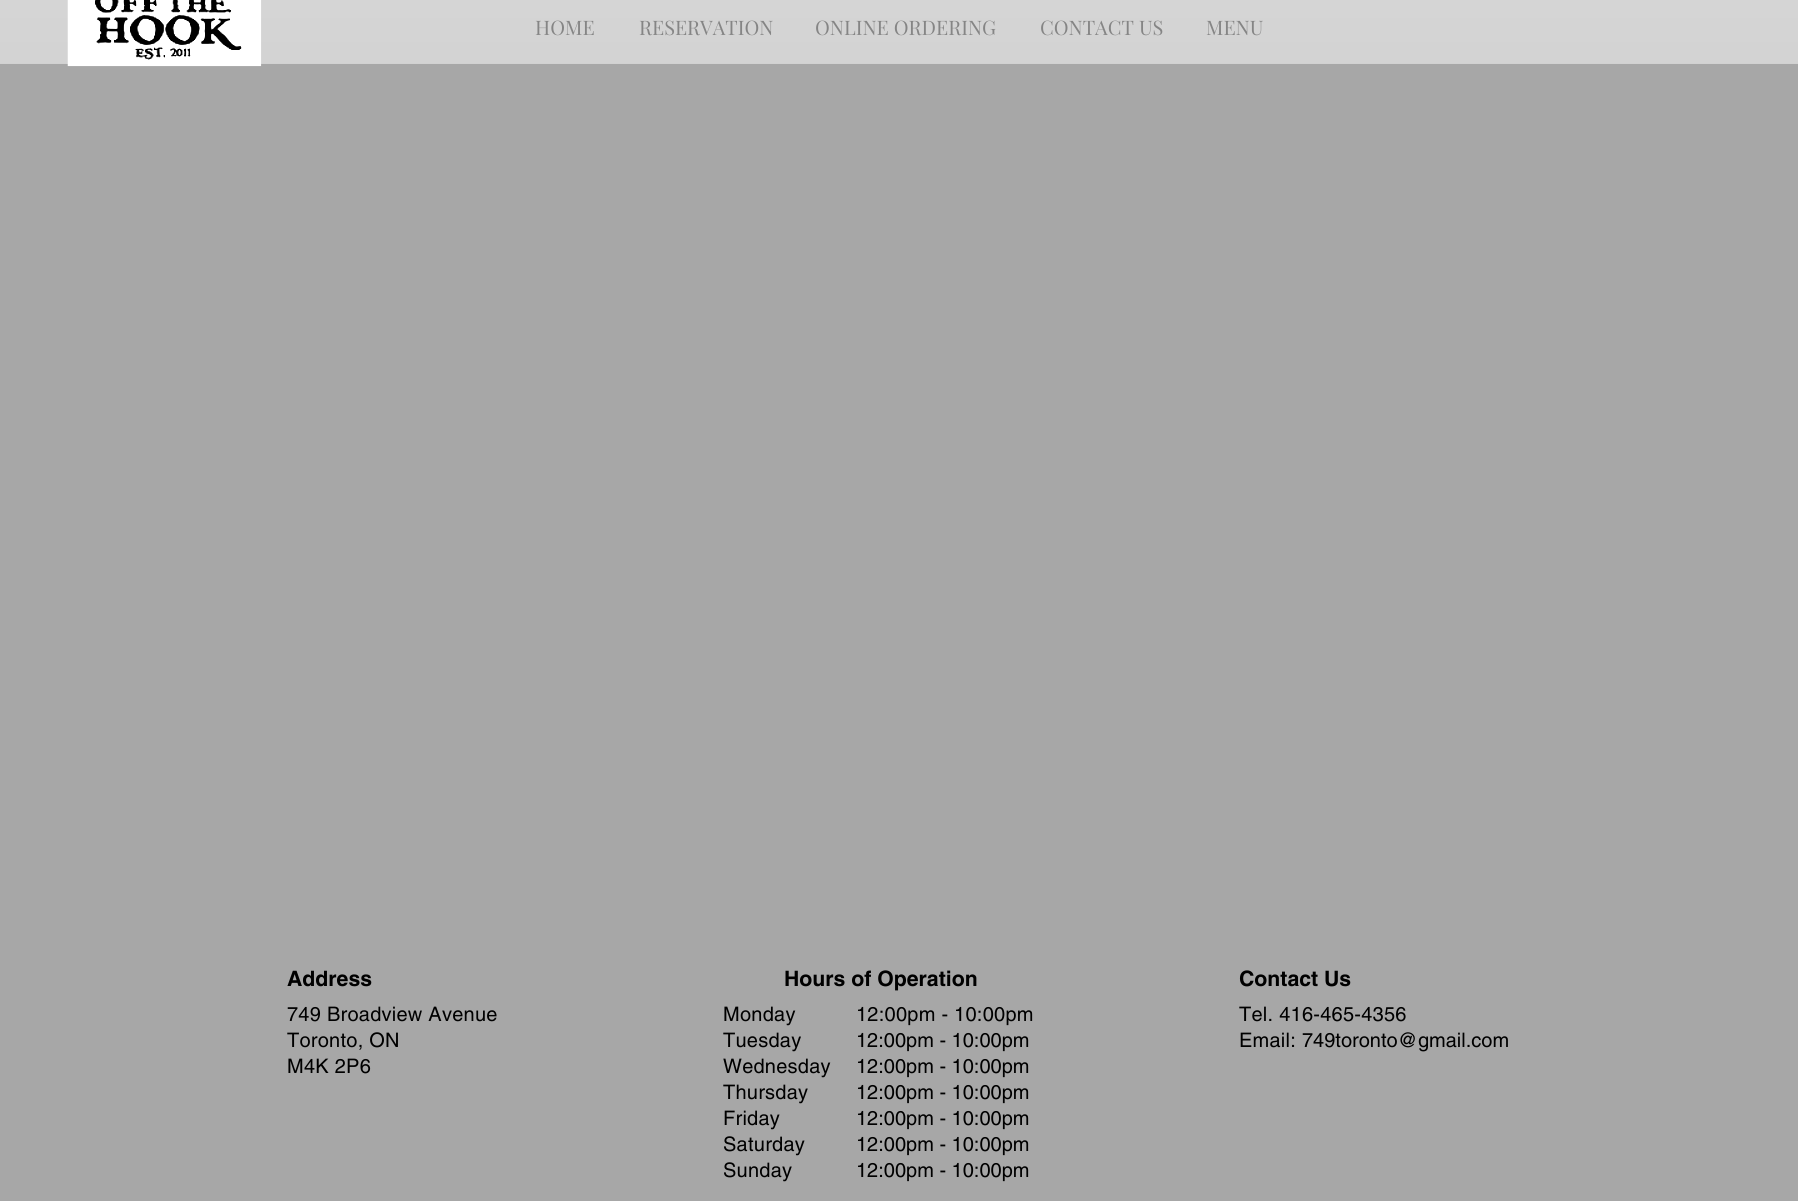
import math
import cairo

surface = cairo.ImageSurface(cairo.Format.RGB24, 1798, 1201)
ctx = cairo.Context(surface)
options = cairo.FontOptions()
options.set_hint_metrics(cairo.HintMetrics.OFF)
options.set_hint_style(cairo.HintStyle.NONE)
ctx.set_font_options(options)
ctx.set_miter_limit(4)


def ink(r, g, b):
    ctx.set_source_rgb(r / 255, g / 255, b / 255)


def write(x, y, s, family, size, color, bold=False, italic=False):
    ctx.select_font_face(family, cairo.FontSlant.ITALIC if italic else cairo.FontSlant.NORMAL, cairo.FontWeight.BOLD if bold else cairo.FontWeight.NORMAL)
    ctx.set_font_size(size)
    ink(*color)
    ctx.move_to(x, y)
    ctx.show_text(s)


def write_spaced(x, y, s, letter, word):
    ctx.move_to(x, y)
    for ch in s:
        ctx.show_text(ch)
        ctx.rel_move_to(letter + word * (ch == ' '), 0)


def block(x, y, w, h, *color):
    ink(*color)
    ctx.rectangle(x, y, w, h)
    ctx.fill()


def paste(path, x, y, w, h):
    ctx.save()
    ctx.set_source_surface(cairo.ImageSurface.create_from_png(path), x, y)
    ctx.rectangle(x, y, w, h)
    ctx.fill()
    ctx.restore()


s1 = dict(family="Playfair Display", size=20, color=(133, 133, 133))
s2 = dict(family="helvetica", size=21.25, color=(0, 0, 0), bold=True)
s3 = dict(family="helvetica", size=20, color=(0, 0, 0))

ink(167, 167, 167)
ctx.paint()
block(0, 0, 1798, 64, 204, 204, 204)
paste("pic1.png", 0, 0, 1798, 64)
paste("pic2.png", 67, 0, 195, 67)
write(535, 35, "HOME", **s1)
write(639, 35, "RESERVATION", **s1)
write(815, 35, "ONLINE ORDERING", **s1)
write(1040, 35, "CONTACT US", **s1)
write(1206, 35, "MENU", **s1)
write(287, 986, "Address", **s2)
write(784, 986, "Hours of Operation", **s2)
write(1239, 986, "Contact Us", **s2)
ctx.select_font_face("helvetica")
ctx.set_font_size(20)
write_spaced(287, 1021, "749 Broadview Avenue", 0.25, 0)
write_spaced(287, 1047, "Toronto, ON", 0.25, 0)
write_spaced(287, 1073, "M4K 2P6", 0.25, 0)
write_spaced(723, 1021, "Monday", 0.25, 0)
write_spaced(723, 1047, "Tuesday", 0.25, 0)
write_spaced(723, 1073, "Wednesday", 0.25, 0)
write_spaced(723, 1099, "Thursday", 0.25, 0)
write_spaced(723, 1125, "Friday", 0.25, 0)
write_spaced(723, 1151, "Saturday", 0.25, 0)
write_spaced(723, 1177, "Sunday", 0.25, 0)
write_spaced(856, 1021, "12:00pm - 10:00pm", 0.25, 0)
write(856, 1047, "12:00pm - 10:00pm", **s3)
write(856, 1073, "12:00pm - 10:00pm", **s3)
write(856, 1099, "12:00pm - 10:00pm", **s3)
write(856, 1125, "12:00pm - 10:00pm", **s3)
write(856, 1151, "12:00pm - 10:00pm", **s3)
write(856, 1177, "12:00pm - 10:00pm", **s3)
write_spaced(1239, 1021, "Tel. 416-465-4356", 0.25, 0)
write_spaced(1239, 1047, "Email:", 0.25, 0)
write(1302, 1047, "749toronto@gmail.com", **s3)
surface.write_to_png("screenshot.png")
